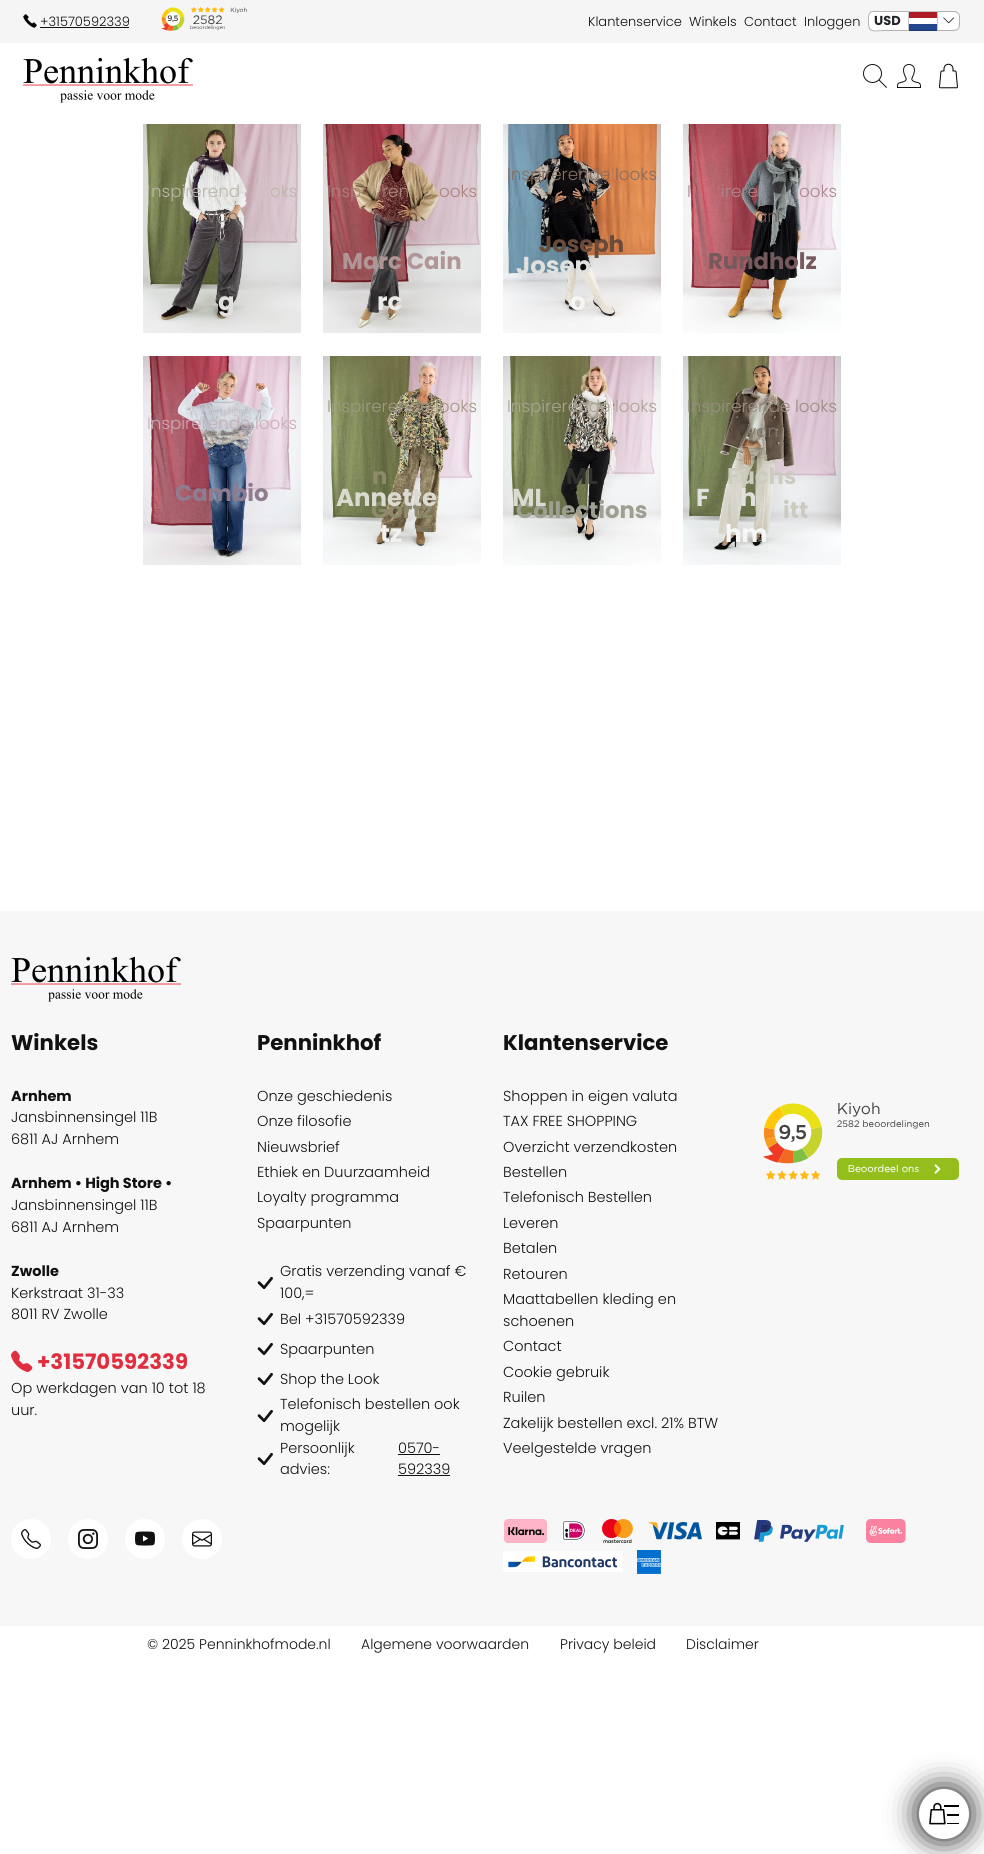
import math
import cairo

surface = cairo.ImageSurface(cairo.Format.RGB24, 984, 1854)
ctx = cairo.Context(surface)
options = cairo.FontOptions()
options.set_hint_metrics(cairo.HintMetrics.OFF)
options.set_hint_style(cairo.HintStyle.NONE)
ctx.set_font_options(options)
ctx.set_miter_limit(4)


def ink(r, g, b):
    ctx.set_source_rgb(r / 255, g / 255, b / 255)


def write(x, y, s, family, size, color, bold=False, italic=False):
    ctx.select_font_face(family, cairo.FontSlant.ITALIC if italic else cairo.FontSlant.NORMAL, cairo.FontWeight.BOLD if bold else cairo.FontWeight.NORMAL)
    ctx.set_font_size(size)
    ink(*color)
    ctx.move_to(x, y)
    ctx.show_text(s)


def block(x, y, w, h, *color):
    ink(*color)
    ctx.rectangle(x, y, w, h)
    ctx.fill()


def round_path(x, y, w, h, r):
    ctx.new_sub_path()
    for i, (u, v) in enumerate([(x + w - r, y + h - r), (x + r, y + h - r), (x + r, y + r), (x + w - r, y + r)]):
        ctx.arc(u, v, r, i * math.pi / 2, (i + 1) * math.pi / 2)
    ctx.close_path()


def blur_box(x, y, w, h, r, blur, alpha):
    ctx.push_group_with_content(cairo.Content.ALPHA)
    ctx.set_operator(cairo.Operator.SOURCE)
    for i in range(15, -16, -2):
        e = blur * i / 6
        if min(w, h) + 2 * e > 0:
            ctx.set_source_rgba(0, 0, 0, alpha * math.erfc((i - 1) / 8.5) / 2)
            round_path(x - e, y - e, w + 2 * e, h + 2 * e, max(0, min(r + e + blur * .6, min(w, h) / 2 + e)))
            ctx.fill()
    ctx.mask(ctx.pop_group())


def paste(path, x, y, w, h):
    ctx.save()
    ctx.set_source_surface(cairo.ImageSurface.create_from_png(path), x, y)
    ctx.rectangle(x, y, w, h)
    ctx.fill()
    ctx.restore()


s1 = dict(family="Poppins Light", size=13, color=(17, 17, 17))
s2 = dict(family="Poppins", size=13, color=(33, 37, 41), bold=True)
s3 = dict(family="Poppins Light", size=16.75, color=(187, 182, 172))
s4 = dict(family="Poppins Light", size=16.75, color=(129, 119, 113))
s5 = dict(family="Poppins", size=24.5, color=(224, 224, 223), bold=True)
s6 = dict(family="Poppins Light", size=16.75, color=(170, 131, 123))
s7 = dict(family="Poppins Light", size=16.75, color=(115, 75, 64))
s8 = dict(family="Poppins", size=22.75, color=(177, 150, 152), bold=True)
s9 = dict(family="Poppins", size=24.5, color=(235, 235, 234), bold=True)
s10 = dict(family="Poppins Light", size=16.75, color=(137, 110, 92))
s11 = dict(family="Poppins Light", size=16.75, color=(42, 31, 28))
s12 = dict(family="Poppins", size=22.75, color=(104, 75, 58), bold=True)
s13 = dict(family="Poppins", size=24.5, color=(246, 246, 246), bold=True)
s14 = dict(family="Poppins Light", size=16.75, color=(173, 135, 142))
s15 = dict(family="Poppins Light", size=16.75, color=(112, 82, 80))
s16 = dict(family="Poppins", size=22.75, color=(118, 89, 93), bold=True)
s17 = dict(family="Poppins Light", size=16.75, color=(200, 172, 182))
s18 = dict(family="Poppins", size=22.75, color=(144, 124, 143), bold=True)
s19 = dict(family="Poppins Light", size=16.75, color=(158, 154, 129))
s20 = dict(family="Poppins Light", size=16.75, color=(134, 129, 99))
s21 = dict(family="Poppins", size=22.75, color=(142, 138, 108), bold=True)
s22 = dict(family="Poppins", size=24.5, color=(218, 218, 208), bold=True)
s23 = dict(family="Poppins", size=24.5, color=(242, 241, 239), bold=True)
s24 = dict(family="Poppins Light", size=16.75, color=(169, 164, 147))
s25 = dict(family="Poppins Light", size=16.75, color=(122, 118, 109))
s26 = dict(family="Poppins", size=22.75, color=(48, 48, 44), bold=True)
s27 = dict(family="Poppins", size=22.75, color=(157, 159, 145), bold=True)
s28 = dict(family="Poppins Light", size=16.75, color=(151, 141, 129))
s29 = dict(family="Poppins", size=22.75, color=(204, 203, 192), bold=True)
s30 = dict(family="Poppins", size=21.25, color=(17, 17, 17), bold=True)
s31 = dict(family="Poppins", size=14.5, color=(17, 17, 17), bold=True)
s32 = dict(family="Poppins Light", size=14.5, color=(17, 17, 17))
s33 = dict(family="Poppins", size=21.25, color=(224, 46, 62), bold=True)
s34 = dict(family="Poppins Light", size=14, color=(17, 17, 17))

ink(255, 255, 255)
ctx.paint()
block(0, 0, 984, 43, 245, 245, 245)
paste("pic1.png", 23, 14, 14, 14)
write(40, 26, "+31570592339", **s1)
block(40, 27, 89, 1, 17, 17, 17)
paste("pic2.png", 161, 7, 86, 24)
write(588, 26, "Klantenservice", **s1)
write(689, 26, "Winkels", **s1)
write(744, 26, "Contact", **s1)
write(804, 26, "Inloggen", **s1)
ink(255, 255, 255)
ctx.new_path()
ctx.move_to(873, 11)
ctx.line_to(908, 11)
ctx.line_to(908, 31)
ctx.line_to(873, 31)
ctx.curve_to(870, 31, 868, 29, 868, 26)
ctx.line_to(868, 16)
ctx.curve_to(868, 13, 870, 11, 873, 11)
ctx.close_path()
ctx.fill()
ctx.set_source_rgba(0, 0, 0, 0.3)
ctx.set_fill_rule(cairo.FillRule.EVEN_ODD)
ctx.new_path()
ctx.move_to(873, 11)
ctx.line_to(908, 11)
ctx.line_to(908, 31)
ctx.line_to(885, 31)
ctx.curve_to(874, 31, 868, 34, 868, 23)
ctx.curve_to(868, 19, 867, 11, 873, 11)
ctx.close_path()
ctx.move_to(873, 12)
ctx.line_to(908, 12)
ctx.line_to(908, 30)
ctx.line_to(885, 30)
ctx.curve_to(875, 30, 869, 33, 869, 23)
ctx.curve_to(869, 19, 868, 12, 873, 12)
ctx.close_path()
ctx.fill()
write(874, 25, "USD", **s2)
block(909, 24, 28, 7, 33, 70, 139)
block(909, 18, 28, 6, 255, 255, 255)
block(909, 12, 28, 6, 174, 28, 40)
ctx.rectangle(908.5, 11.5, 29, 19)
ctx.set_source_rgba(0, 0, 0, 0.2)
ctx.set_line_width(1)
ctx.stroke()
ink(255, 255, 255)
ctx.new_path()
ctx.move_to(938, 11)
ctx.line_to(954, 11)
ctx.curve_to(957.5, 11, 960, 13.5, 960, 17)
ctx.line_to(960, 25)
ctx.curve_to(960, 28.5, 957.5, 31, 954, 31)
ctx.line_to(938, 31)
ctx.close_path()
ctx.fill()
ink(178, 178, 178)
ctx.new_path()
ctx.move_to(938, 11)
ctx.line_to(954, 11)
ctx.curve_to(957.5, 11, 960, 13.5, 960, 17)
ctx.line_to(960, 25)
ctx.curve_to(960, 28.5, 957.5, 31, 954, 31)
ctx.line_to(938, 31)
ctx.close_path()
ctx.move_to(938, 12)
ctx.line_to(951.5, 12)
ctx.curve_to(959, 12, 959, 14, 959, 21)
ctx.curve_to(959, 28, 959, 30, 951.5, 30)
ctx.line_to(938, 30)
ctx.close_path()
ctx.fill()
paste("pic3.png", 943, 17, 11, 7)
paste("pic4.png", 23, 57, 170, 46)
paste("pic5.png", 863, 64, 24, 24)
paste("pic6.png", 897, 64, 24, 24)
paste("pic7.png", 939, 63, 19, 26)
paste("pic8.png", 143, 124, 158, 209)
write(151, 197, "nspirerend", **s3)
write(270, 197, "oks", **s3)
write(207, 222, "van", **s4)
write(218, 310, "g", **s5)
paste("pic9.png", 323, 124, 158, 209)
write(327, 197, "Insp", **s6)
write(382, 197, "ren", **s6)
write(439, 197, "ooks", **s6)
write(387, 222, "van", **s7)
write(342, 269, "Marc Cain", **s8)
write(377, 310, "rc", **s9)
paste("pic10.png", 503, 124, 158, 209)
write(507, 180, "Inspirerende looks", **s10)
write(567, 205, "van", **s11)
write(539, 252, "Joseph", **s12)
write(516, 274, "Josep", **s5)
write(570, 310, "o", **s13)
paste("pic11.png", 683, 124, 158, 209)
write(687, 197, "I", **s14)
write(721, 197, "irere", **s14)
write(799, 197, "ooks", **s14)
write(756, 222, "an", **s15)
write(708, 269, "Rundholz", **s16)
paste("pic12.png", 143, 356, 158, 209)
write(147, 429, "Inspirerende looks", **s17)
write(175, 501, "Cambio", **s18)
paste("pic13.png", 323, 356, 158, 209)
write(327, 412, "Inspirerende looks", **s19)
write(387, 437, "van", **s20)
write(372, 484, "n", **s21)
write(371, 518, "Görtz", **s21)
write(336, 506, "Annette", **s22)
write(380, 542, "tz", **s23)
paste("pic14.png", 503, 356, 158, 209)
write(507, 412, "Inspirerende looks", **s24)
write(567, 437, "van", **s25)
write(566, 484, "ML", **s26)
write(516, 518, "Collections", **s27)
write(512, 506, "ML", **s22)
paste("pic15.png", 683, 356, 158, 209)
write(687, 412, "Inspirerende looks", **s28)
write(747, 437, "van", **s4)
write(727, 484, "Fuchs", **s29)
write(783, 518, "itt", **s29)
write(696, 506, "F", **s5)
write(740, 506, "h", **s5)
write(725, 542, "hm", **s13)
block(0, 911, 984, 715, 247, 247, 247)
paste("pic16.png", 11, 956, 170, 46)
write(11, 1050, "Winkels", **s30)
write(11, 1101, "Arnhem", **s31)
write(11, 1122, "Jansbinnensingel 11B", **s32)
write(11, 1144, "6811 AJ Arnhem", **s32)
write(11, 1188, "Arnhem • High Store •", **s31)
write(11, 1210, "Jansbinnensingel 11B", **s32)
write(11, 1232, "6811 AJ Arnhem", **s32)
write(11, 1276, "Zwolle", **s31)
write(11, 1298, "Kerkstraat 31-33", **s32)
write(11, 1319, "8011 RV Zwolle", **s32)
paste("pic17.png", 11, 1350, 22, 22)
write(37, 1369, "+31570592339", **s33)
write(11, 1393, "Op werkdagen van 10 tot 18", **s32)
write(11, 1415, "uur.", **s32)
write(257, 1050, "Penninkhof", **s30)
write(257, 1101, "Onze geschiedenis", **s32)
write(257, 1126, "Onze filosofie", **s32)
write(257, 1152, "Nieuwsbrief", **s32)
write(257, 1177, "Ethiek en Duurzaamheid", **s32)
write(257, 1202, "Loyalty programma", **s32)
write(257, 1228, "Spaarpunten", **s32)
paste("pic18.png", 257, 1276, 16, 14)
write(280, 1276, "Gratis verzending vanaf €", **s32)
write(280, 1298, "100,=", **s32)
paste("pic18.png", 257, 1312, 16, 14)
write(280, 1324, "Bel +31570592339", **s32)
paste("pic18.png", 257, 1342, 16, 14)
write(280, 1354, "Spaarpunten", **s32)
paste("pic18.png", 257, 1372, 16, 14)
write(280, 1384, "Shop the Look", **s32)
paste("pic18.png", 257, 1409, 16, 14)
write(280, 1409, "Telefonisch bestellen ook", **s32)
write(280, 1431, "mogelijk", **s32)
paste("pic18.png", 257, 1452, 16, 14)
write(280, 1453, "Persoonlijk", **s32)
write(398, 1453, "0570-", **s32)
block(398, 1454, 42, 1, 17, 17, 17)
write(398, 1474, "592339", **s32)
block(398, 1475, 52, 1, 17, 17, 17)
write(280, 1474, "advies:", **s32)
write(503, 1050, "Klantenservice", **s30)
write(503, 1101, "Shoppen in eigen valuta", **s32)
write(503, 1126, "TAX FREE SHOPPING", **s32)
write(503, 1152, "Overzicht verzendkosten", **s32)
write(503, 1177, "Bestellen", **s32)
write(503, 1202, "Telefonisch Bestellen", **s32)
write(503, 1228, "Leveren", **s32)
write(503, 1253, "Betalen", **s32)
write(503, 1279, "Retouren", **s32)
write(503, 1304, "Maattabellen kleding en", **s32)
write(503, 1326, "schoenen", **s32)
write(503, 1351, "Contact", **s32)
write(503, 1377, "Cookie gebruik", **s32)
write(503, 1402, "Ruilen", **s32)
write(503, 1428, "Zakelijk bestellen excl. 21% BTW", **s32)
write(503, 1453, "Veelgestelde vragen", **s32)
paste("pic19.png", 763, 1102, 196, 78)
ink(255, 255, 255)
ctx.arc(31, 1539, 20, 0, 2 * math.pi)
ctx.fill()
paste("pic20.png", 21, 1529, 20, 20)
ctx.arc(88, 1539, 20, 0, 2 * math.pi)
ctx.fill()
paste("pic21.png", 78, 1529, 20, 20)
ctx.arc(145, 1539, 20, 0, 2 * math.pi)
ctx.fill()
paste("pic22.png", 135, 1531, 20, 15)
ctx.arc(202, 1539, 20, 0, 2 * math.pi)
ctx.fill()
paste("pic23.png", 192, 1531, 20, 16)
paste("pic24.png", 504, 1519, 43, 24)
paste("pic25.png", 562, 1520, 24, 21)
paste("pic26.png", 602, 1519, 31, 24)
paste("pic27.png", 648, 1522, 54, 18)
paste("pic28.png", 716, 1522, 24, 18)
paste("pic29.png", 754, 1520, 90, 22)
paste("pic30.png", 866, 1519, 40, 24)
paste("pic31.png", 503, 1551, 120, 21)
paste("pic32.png", 637, 1550, 24, 24)
write(147, 1649, "© 2025 Penninkhofmode.nl", **s34)
write(361, 1649, "Algemene voorwaarden", **s34)
write(560, 1649, "Privacy beleid", **s34)
write(686, 1649, "Disclaimer", **s34)
ink(0, 0, 0)
blur_box(919, 1789, 50, 50, 25, 15, 0.95)
ink(255, 255, 255)
ctx.arc(944, 1814, 25, 0, 2 * math.pi)
ctx.fill()
paste("pic33.png", 929, 1802, 30, 23)
surface.write_to_png("screenshot.png")
